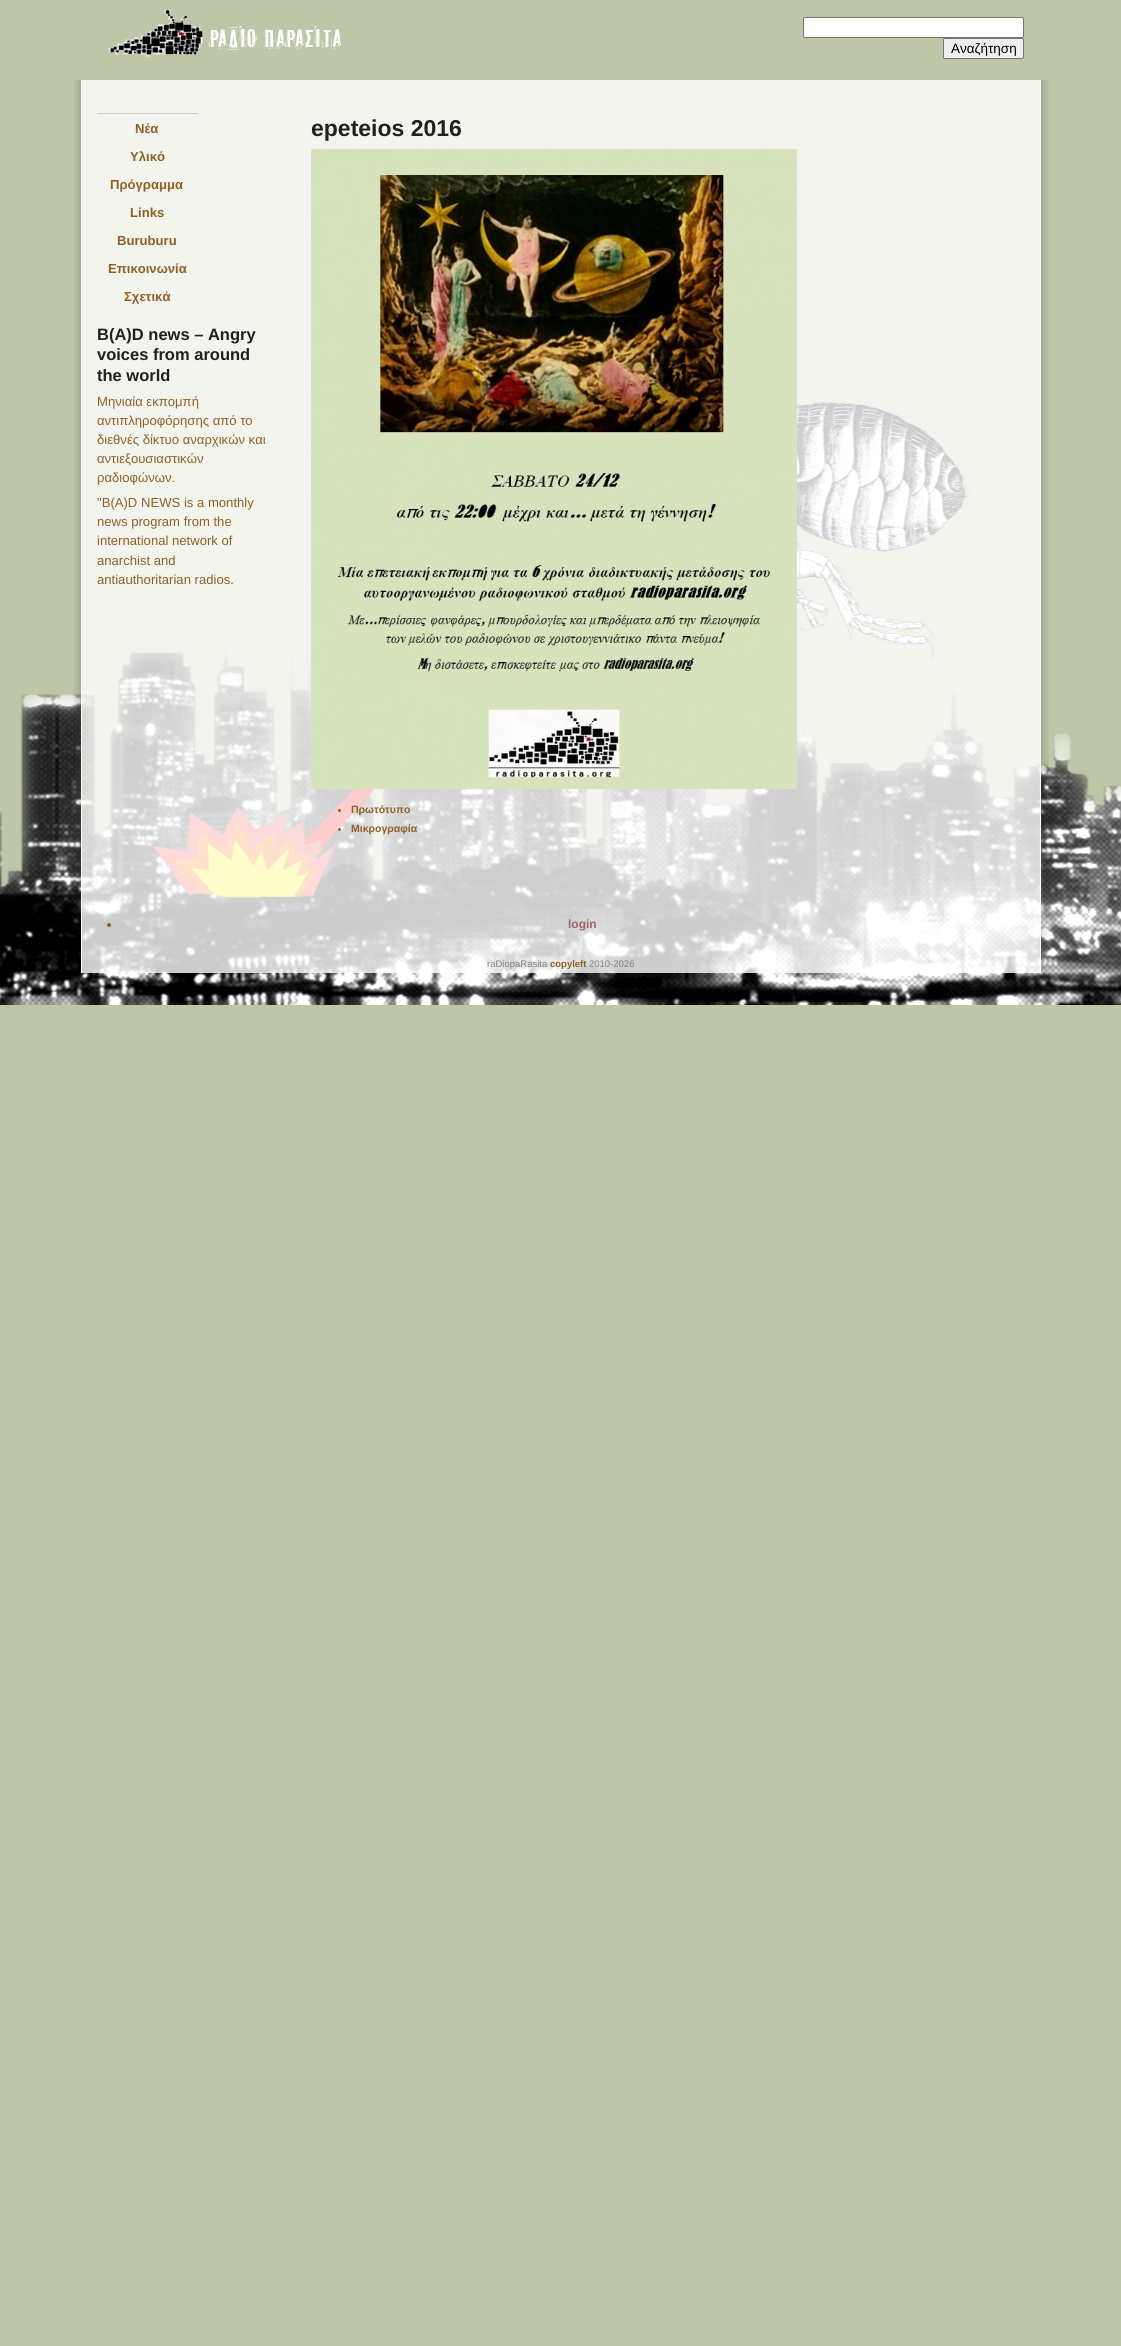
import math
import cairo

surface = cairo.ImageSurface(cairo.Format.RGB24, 1121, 2346)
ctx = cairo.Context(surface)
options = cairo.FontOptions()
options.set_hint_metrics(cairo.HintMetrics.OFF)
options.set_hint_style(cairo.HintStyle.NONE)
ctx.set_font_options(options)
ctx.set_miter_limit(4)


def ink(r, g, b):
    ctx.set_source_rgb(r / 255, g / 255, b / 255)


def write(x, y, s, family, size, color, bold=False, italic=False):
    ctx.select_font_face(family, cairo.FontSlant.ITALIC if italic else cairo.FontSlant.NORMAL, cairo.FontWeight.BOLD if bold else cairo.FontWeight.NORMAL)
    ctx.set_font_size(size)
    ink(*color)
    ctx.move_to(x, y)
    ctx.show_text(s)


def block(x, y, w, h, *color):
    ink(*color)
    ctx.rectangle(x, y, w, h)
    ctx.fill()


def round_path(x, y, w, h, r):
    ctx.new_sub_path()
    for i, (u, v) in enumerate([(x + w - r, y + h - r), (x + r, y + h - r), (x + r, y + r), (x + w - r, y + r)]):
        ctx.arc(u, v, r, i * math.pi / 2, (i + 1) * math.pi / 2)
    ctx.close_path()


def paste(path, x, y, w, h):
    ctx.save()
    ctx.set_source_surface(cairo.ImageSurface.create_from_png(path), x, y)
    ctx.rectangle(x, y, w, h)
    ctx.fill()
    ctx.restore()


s1 = dict(family="Liberation Sans", size=13.5, color=(0, 0, 0))
s2 = dict(family="Liberation Sans", size=13.1, color=(142, 97, 38), bold=True)
s3 = dict(family="Liberation Sans", size=16.5, color=(32, 32, 32), bold=True)
s4 = dict(family="Liberation Sans", size=13.1, color=(142, 97, 38))
s5 = dict(family="Liberation Sans", size=23, color=(32, 32, 32), bold=True)
s6 = dict(family="Liberation Sans", size=10.5, color=(142, 97, 38), bold=True)
s7 = dict(family="Liberation Sans", size=12, color=(160, 100, 94), bold=True)
s8 = dict(family="Liberation Sans", size=9.5, color=(128, 128, 128))
s9 = dict(family="Liberation Sans", size=9.5, color=(142, 97, 38), bold=True)

ink(189, 198, 167)
ctx.paint()
paste("pic1.png", 0, 371, 1121, 634)
paste("pic2.png", 108, 9, 235, 48)
ink(255, 255, 255)
round_path(803.5, 17.5, 220, 20, 1.5)
ctx.fill_preserve()
ink(118, 118, 118)
ctx.set_line_width(1)
ctx.stroke()
ink(239, 239, 239)
round_path(943.5, 38.5, 80, 20, 1.5)
ctx.fill_preserve()
ink(118, 118, 118)
ctx.stroke()
write(951, 53, "Αναζήτηση", **s1)
paste("pic3.png", 73, 80, 9, 893)
paste("pic4.png", 1040, 80, 9, 893)
ctx.set_source_rgba(1, 1, 1, 0.8)
ctx.rectangle(82, 80, 958, 893)
ctx.fill()
block(97, 113, 101, 1, 204, 204, 204)
write(135, 133, "Νέα", **s2)
write(130, 161, "Υλικό", **s2)
write(110, 189, "Πρόγραμμα", **s2)
write(130, 217, "Links", **s2)
write(117, 245, "Buruburu", **s2)
write(108, 273, "Επικοινωνία", **s2)
write(124, 301, "Σχετικά", **s2)
write(97, 340, "B(A)D news – Angry", **s3)
write(97, 360, "voices from around", **s3)
write(97, 381, "the world", **s3)
write(97, 406, "Μηνιαία εκπομπή", **s4)
write(97, 425, "αντιπληροφόρησης από το", **s4)
write(97, 444, "διεθνές δίκτυο αναρχικών και", **s4)
write(97, 463, "αντιεξουσιαστικών", **s4)
write(97, 482, "ραδιοφώνων.", **s4)
write(97, 507, "\"B(A)D NEWS is a monthly", **s4)
write(97, 526, "news program from the", **s4)
write(97, 545, "international network of", **s4)
write(97, 565, "anarchist and", **s4)
write(97, 584, "antiauthoritarian radios.", **s4)
write(311, 136, "epeteios 2016", **s5)
paste("pic5.png", 311, 149, 486, 640)
ink(142, 97, 38)
ctx.arc(339.5, 810.5, 1.5, 0, 2 * math.pi)
ctx.fill()
write(351, 813, "Πρωτότυπο", **s6)
ctx.new_path()
ctx.arc(339.5, 829.5, 1.5, 0, 2 * math.pi)
ctx.fill()
write(351, 832, "Μικρογραφία", **s6)
ctx.new_path()
ctx.arc(109, 925, 2, 0, 2 * math.pi)
ctx.fill()
write(568, 928, "login", **s7)
write(487, 967, "raDiopaRasita", **s8)
write(550, 967, "copyleft", **s9)
write(589, 967, "2010-2026", **s8)
surface.write_to_png("screenshot.png")
